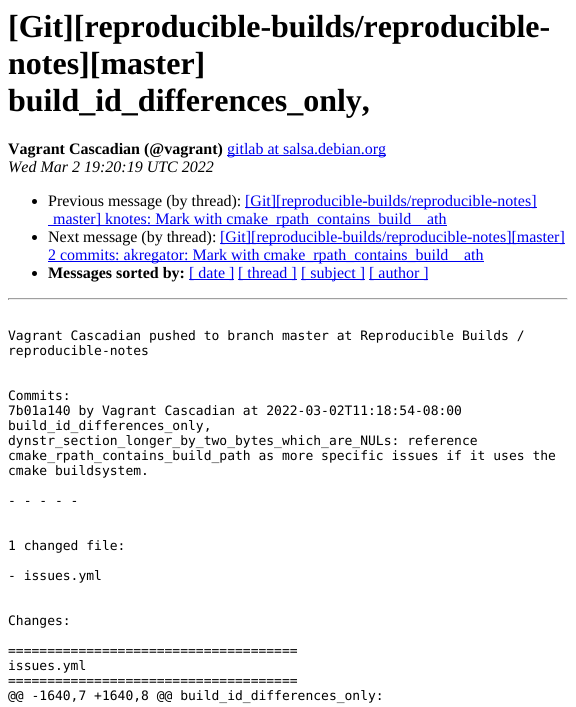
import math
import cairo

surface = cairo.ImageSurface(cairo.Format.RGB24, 576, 707)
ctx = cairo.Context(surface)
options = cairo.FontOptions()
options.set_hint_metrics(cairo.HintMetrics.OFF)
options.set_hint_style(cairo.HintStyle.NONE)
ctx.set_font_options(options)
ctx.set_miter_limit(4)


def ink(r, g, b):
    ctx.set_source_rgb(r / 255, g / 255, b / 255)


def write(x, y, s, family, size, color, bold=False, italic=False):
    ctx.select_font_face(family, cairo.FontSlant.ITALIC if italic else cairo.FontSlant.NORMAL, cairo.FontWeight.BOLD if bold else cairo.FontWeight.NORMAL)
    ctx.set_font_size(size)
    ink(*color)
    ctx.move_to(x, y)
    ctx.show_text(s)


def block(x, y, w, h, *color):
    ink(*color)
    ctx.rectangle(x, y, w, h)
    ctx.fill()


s1 = dict(family="Liberation Serif", size=32, color=(0, 0, 0), bold=True)
s2 = dict(family="Liberation Serif", size=16, color=(0, 0, 0), bold=True)
s3 = dict(family="Liberation Serif", size=16, color=(0, 0, 238))
s4 = dict(family="Liberation Serif", size=16, color=(0, 0, 0), italic=True)
s5 = dict(family="Liberation Serif", size=16, color=(0, 0, 0))
s6 = dict(family="DejaVu Sans Mono", size=13, color=(0, 0, 0))

ink(255, 255, 255)
ctx.paint()
write(8, 37, "[Git][reproducible-builds/reproducible-", **s1)
write(8, 74, "notes][master]", **s1)
write(8, 111, "build_id_differences_only,", **s1)
write(8, 154, "Vagrant Cascadian (@vagrant)", **s2)
block(227, 155, 159, 1, 0, 0, 238)
write(227, 154, "gitlab at salsa.debian.org", **s3)
write(8, 172, "Wed Mar 2 19:20:19 UTC 2022", **s4)
ctx.new_path()
ctx.arc(34.5, 201.5, 2.5, 0, 2 * math.pi)
ctx.fill()
write(48, 206, "Previous message (by thread):", **s5)
block(245, 207, 292, 1, 0, 0, 238)
write(245, 206, "[Git][reproducible-builds/reproducible-notes]", **s3)
block(48, 225, 399, 1, 0, 0, 238)
write(53, 224, "master] knotes: Mark with cmake_rpath_contains_build", **s3)
write(427, 224, "ath", **s3)
ink(0, 0, 0)
ctx.new_path()
ctx.arc(34.5, 237.5, 2.5, 0, 2 * math.pi)
ctx.fill()
write(48, 242, "Next message (by thread):", **s5)
block(220, 243, 345, 1, 0, 0, 238)
write(220, 242, "[Git][reproducible-builds/reproducible-notes][master]", **s3)
block(48, 261, 436, 1, 0, 0, 238)
write(48, 260, "2 commits: akregator: Mark with cmake_rpath_contains_build", **s3)
write(464, 260, "ath", **s3)
ink(0, 0, 0)
ctx.new_path()
ctx.arc(34.5, 273.5, 2.5, 0, 2 * math.pi)
ctx.fill()
write(48, 278, "Messages sorted by:", **s2)
block(189, 279, 45, 1, 0, 0, 238)
write(189, 278, "[ date ]", **s3)
block(238, 279, 59, 1, 0, 0, 238)
write(238, 278, "[ thread ]", **s3)
block(301, 279, 64, 1, 0, 0, 238)
write(301, 278, "[ subject ]", **s3)
block(369, 279, 59, 1, 0, 0, 238)
write(369, 278, "[ author ]", **s3)
block(8, 298, 560, 1, 159, 159, 159)
block(567, 298, 1, 2, 238, 238, 238)
block(8, 299, 560, 1, 238, 238, 238)
block(8, 298, 1, 2, 159, 159, 159)
write(8, 340, "Vagrant Cascadian pushed to branch master at Reproducible Builds /", **s6)
write(8, 355, "reproducible-notes", **s6)
write(8, 400, "Commits:", **s6)
write(8, 415, "7b01a140 by Vagrant Cascadian at 2022-03-02T11:18:54-08:00", **s6)
write(8, 430, "build_id_differences_only,", **s6)
write(8, 445, "dynstr_section_longer_by_two_bytes_which_are_NULs: reference", **s6)
write(8, 460, "cmake_rpath_contains_build_path as more specific issues if it uses the", **s6)
write(8, 475, "cmake buildsystem.", **s6)
write(8, 505, "- - - - -", **s6)
write(8, 550, "1 changed file:", **s6)
write(8, 580, "- issues.yml", **s6)
write(8, 625, "Changes:", **s6)
write(8, 655, "=====================================", **s6)
write(8, 670, "issues.yml", **s6)
write(8, 685, "=====================================", **s6)
write(8, 700, "@@ -1640,7 +1640,8 @@ build_id_differences_only:", **s6)
surface.write_to_png("screenshot.png")
